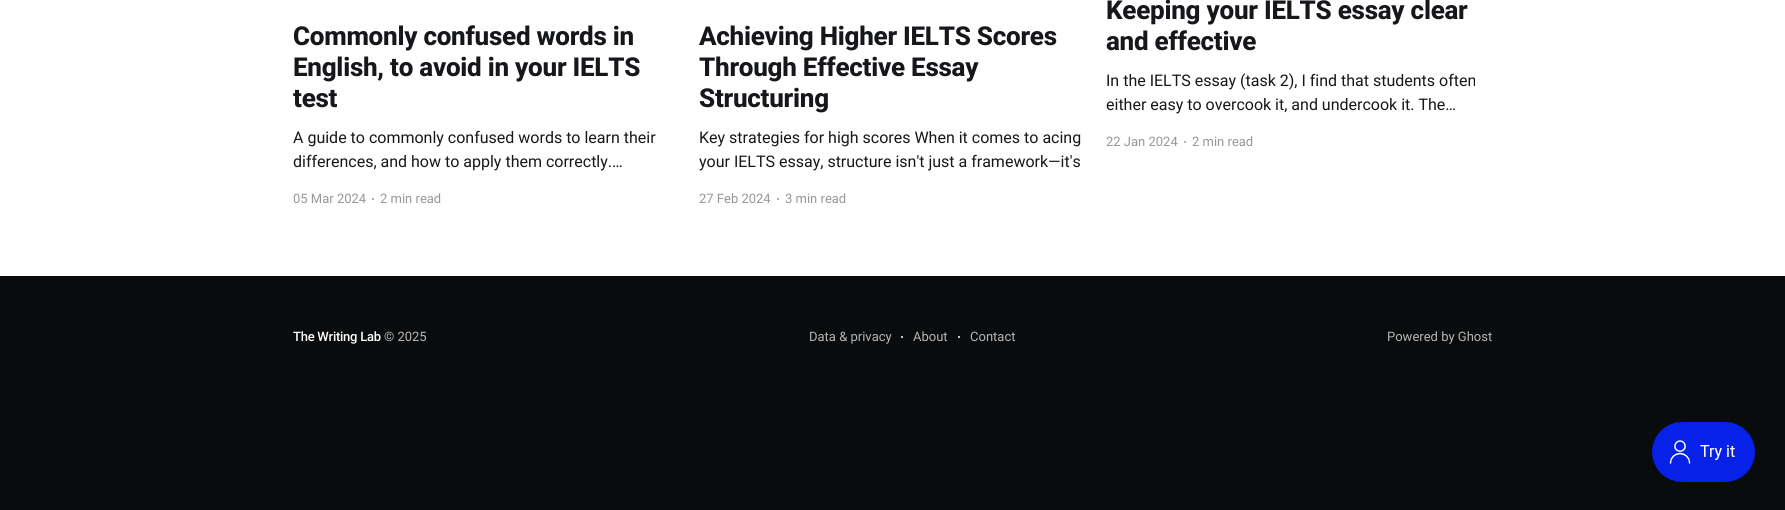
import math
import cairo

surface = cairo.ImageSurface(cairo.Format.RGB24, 1785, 510)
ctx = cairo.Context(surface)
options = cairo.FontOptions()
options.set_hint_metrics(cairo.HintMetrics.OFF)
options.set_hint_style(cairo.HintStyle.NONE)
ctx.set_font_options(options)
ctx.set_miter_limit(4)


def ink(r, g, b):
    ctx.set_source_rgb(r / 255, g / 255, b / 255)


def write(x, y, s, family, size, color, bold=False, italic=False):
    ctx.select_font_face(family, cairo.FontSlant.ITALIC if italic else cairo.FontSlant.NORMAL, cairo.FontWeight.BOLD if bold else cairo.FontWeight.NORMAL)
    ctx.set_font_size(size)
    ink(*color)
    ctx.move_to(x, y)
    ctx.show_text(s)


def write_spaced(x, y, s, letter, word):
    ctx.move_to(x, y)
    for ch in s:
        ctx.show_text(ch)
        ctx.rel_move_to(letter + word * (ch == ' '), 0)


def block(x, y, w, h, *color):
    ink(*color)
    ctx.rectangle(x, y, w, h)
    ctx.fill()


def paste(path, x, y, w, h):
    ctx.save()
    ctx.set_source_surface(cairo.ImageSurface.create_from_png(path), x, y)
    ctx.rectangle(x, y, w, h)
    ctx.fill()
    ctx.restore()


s1 = dict(family="Roboto", size=16, color=(21, 23, 26))
s2 = dict(family="Roboto", size=13, color=(151, 151, 151))
s3 = dict(family="Roboto", size=13, color=(182, 182, 182))

ink(255, 255, 255)
ctx.paint()
ctx.select_font_face("Roboto ExtraBold")
ctx.set_font_size(26)
ink(21, 23, 26)
write_spaced(293, 45, "Commonly confused words in", -0.25, 0)
write_spaced(293, 76, "English, to avoid in your IELTS", -0.25, 0)
write_spaced(293, 107, "test", -0.25, 0)
write(293, 143, "A guide to commonly confused words to learn their", **s1)
write(293, 167, "differences, and how to apply them correctly.…", **s1)
write(293, 203, "05 Mar 2024", **s2)
ctx.new_path()
ctx.arc(373, 199, 1, 0, 2 * math.pi)
ctx.fill()
write(380, 203, "2 min read", **s2)
ctx.select_font_face("Roboto ExtraBold")
ctx.set_font_size(26)
ink(21, 23, 26)
write_spaced(699, 45, "Achieving Higher IELTS Scores", -0.25, 0)
write_spaced(699, 76, "Through Effective Essay", -0.25, 0)
write_spaced(699, 107, "Structuring", -0.25, 0)
write(699, 143, "Key strategies for high scores When it comes to acing", **s1)
write(699, 167, "your IELTS essay, structure isn't just a framework—it's", **s1)
write(699, 203, "27 Feb 2024", **s2)
ctx.new_path()
ctx.arc(778, 199, 1, 0, 2 * math.pi)
ctx.fill()
write(785, 203, "3 min read", **s2)
ctx.select_font_face("Roboto ExtraBold")
ctx.set_font_size(26)
ink(21, 23, 26)
write_spaced(1106, 19, "Keeping your IELTS essay clear", -0.25, 0)
write_spaced(1106, 50, "and effective", -0.25, 0)
write(1106, 86, "In the IELTS essay (task 2), I find that students often", **s1)
write(1106, 110, "either easy to overcook it, and undercook it. The…", **s1)
write(1106, 146, "22 Jan 2024", **s2)
ctx.new_path()
ctx.arc(1185, 142, 1, 0, 2 * math.pi)
ctx.fill()
write(1192, 146, "2 min read", **s2)
block(0, 276, 1785, 234, 10, 11, 12)
ctx.select_font_face("Roboto Medium")
ink(255, 255, 255)
write_spaced(293, 341, "The Writing Lab", -0.25, 0)
write(384, 341, "© 2025", **s3)
write(809, 341, "Data & privacy", **s3)
ink(255, 255, 255)
ctx.new_path()
ctx.arc(902, 337, 1, 0, 2 * math.pi)
ctx.fill()
write(913, 341, "About", **s3)
ink(255, 255, 255)
ctx.new_path()
ctx.arc(959, 337, 1, 0, 2 * math.pi)
ctx.fill()
write(970, 341, "Contact", **s3)
write(1387, 341, "Powered by Ghost", **s3)
paste("pic1.png", 1652, 422, 103, 60)
surface.write_to_png("screenshot.png")
